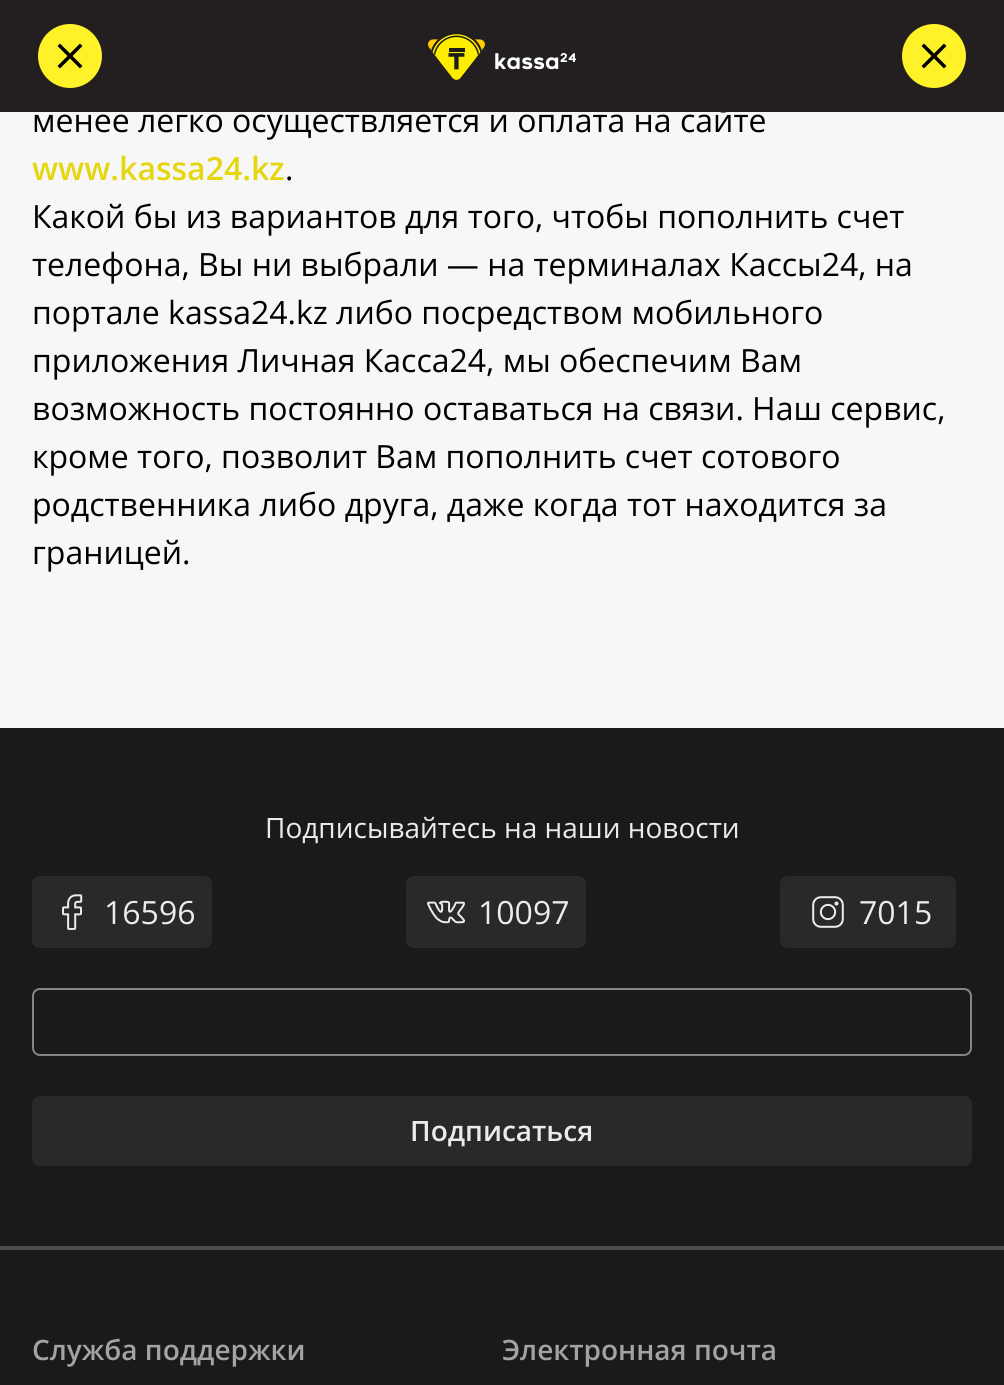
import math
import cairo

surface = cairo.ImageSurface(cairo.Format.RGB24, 1004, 1385)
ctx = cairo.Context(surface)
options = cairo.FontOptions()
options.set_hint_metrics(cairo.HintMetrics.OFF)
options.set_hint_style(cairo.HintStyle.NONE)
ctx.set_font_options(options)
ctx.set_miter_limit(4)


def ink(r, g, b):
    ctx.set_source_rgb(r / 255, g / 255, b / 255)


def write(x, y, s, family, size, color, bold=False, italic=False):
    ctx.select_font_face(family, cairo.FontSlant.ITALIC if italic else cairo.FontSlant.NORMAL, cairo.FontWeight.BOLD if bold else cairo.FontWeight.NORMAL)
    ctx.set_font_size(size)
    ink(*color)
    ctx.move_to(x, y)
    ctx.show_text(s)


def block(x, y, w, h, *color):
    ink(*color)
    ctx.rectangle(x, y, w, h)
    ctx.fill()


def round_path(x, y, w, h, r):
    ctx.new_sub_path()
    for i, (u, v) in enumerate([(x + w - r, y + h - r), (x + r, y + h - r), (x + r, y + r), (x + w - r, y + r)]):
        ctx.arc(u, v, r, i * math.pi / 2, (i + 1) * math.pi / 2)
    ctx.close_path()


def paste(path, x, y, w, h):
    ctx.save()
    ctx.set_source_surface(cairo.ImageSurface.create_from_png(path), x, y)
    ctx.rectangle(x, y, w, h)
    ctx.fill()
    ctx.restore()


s1 = dict(family="Open Sans", size=32, color=(0, 0, 0))
s2 = dict(family="Open Sans SemiBold", size=32, color=(230, 214, 15))
s3 = dict(family="Open Sans", size=28, color=(235, 235, 235))
s4 = dict(family="Open Sans", size=32, color=(235, 235, 235))
s5 = dict(family="Open Sans SemiBold", size=28, color=(235, 235, 235))
s6 = dict(family="Open Sans SemiBold", size=28, color=(163, 163, 163))

ink(247, 247, 247)
ctx.paint()
write(32, 132, "менее легко осуществляется и оплата на сайте", **s1)
block(0, 0, 1004, 112, 35, 31, 32)
ink(255, 242, 41)
ctx.new_path()
ctx.arc(70, 56, 32, 0, 2 * math.pi)
ctx.fill()
ink(0, 0, 0)
ctx.new_path()
ctx.move_to(80, 43.5)
ctx.line_to(82.5, 46)
ctx.line_to(60, 68.5)
ctx.line_to(57.5, 66)
ctx.close_path()
ctx.fill()
ctx.new_path()
ctx.move_to(60, 43.5)
ctx.line_to(82.5, 66)
ctx.line_to(80, 68.5)
ctx.line_to(57.5, 46)
ctx.close_path()
ctx.fill()
paste("pic1.png", 428, 32, 148, 48)
ink(255, 242, 41)
ctx.arc(934, 56, 32, 0, 2 * math.pi)
ctx.fill()
ink(0, 0, 0)
ctx.new_path()
ctx.move_to(944, 43.5)
ctx.line_to(946.5, 46)
ctx.line_to(924, 68.5)
ctx.line_to(921.5, 66)
ctx.close_path()
ctx.fill()
ctx.new_path()
ctx.move_to(924, 43.5)
ctx.line_to(946.5, 66)
ctx.line_to(944, 68.5)
ctx.line_to(921.5, 46)
ctx.close_path()
ctx.fill()
write(32, 180, "www.kassa24.kz", **s2)
write(285, 180, ".", **s1)
write(32, 228, "Какой бы из вариантов для того, чтобы пополнить счет", **s1)
write(32, 276, "телефона, Вы ни выбрали — на терминалах Кассы24, на", **s1)
write(32, 324, "портале kassa24.kz либо посредством мобильного", **s1)
write(32, 372, "приложения Личная Касса24, мы обеспечим Вам", **s1)
write(32, 420, "возможность постоянно оставаться на связи. Наш сервис,", **s1)
write(32, 468, "кроме того, позволит Вам пополнить счет сотового", **s1)
write(32, 516, "родственника либо друга, даже когда тот находится за", **s1)
write(32, 564, "границей.", **s1)
block(0, 728, 1004, 657, 26, 26, 26)
block(0, 1246, 1004, 4, 77, 77, 77)
write(265, 838, "Подписывайтесь на наши новости", **s3)
ink(41, 41, 41)
round_path(32, 876, 180, 72, 8)
ctx.fill()
paste("pic2.png", 62, 894, 21, 36)
write(104, 924, "16596", **s4)
ink(41, 41, 41)
round_path(406, 876, 180, 72, 8)
ctx.fill()
paste("pic3.png", 427, 900, 38, 24)
write(478, 924, "10097", **s4)
ink(41, 41, 41)
round_path(780, 876, 176, 72, 8)
ctx.fill()
paste("pic4.png", 812, 896, 32, 32)
write(859, 924, "7015", **s4)
round_path(33, 989, 938, 66, 7)
ink(133, 133, 133)
ctx.stroke()
ink(41, 41, 41)
round_path(32, 1096, 940, 70, 8)
ctx.fill()
write(410, 1141, "Подписаться", **s5)
write(32, 1360, "Служба поддержки", **s6)
write(502, 1360, "Электронная почта", **s6)
surface.write_to_png("screenshot.png")
